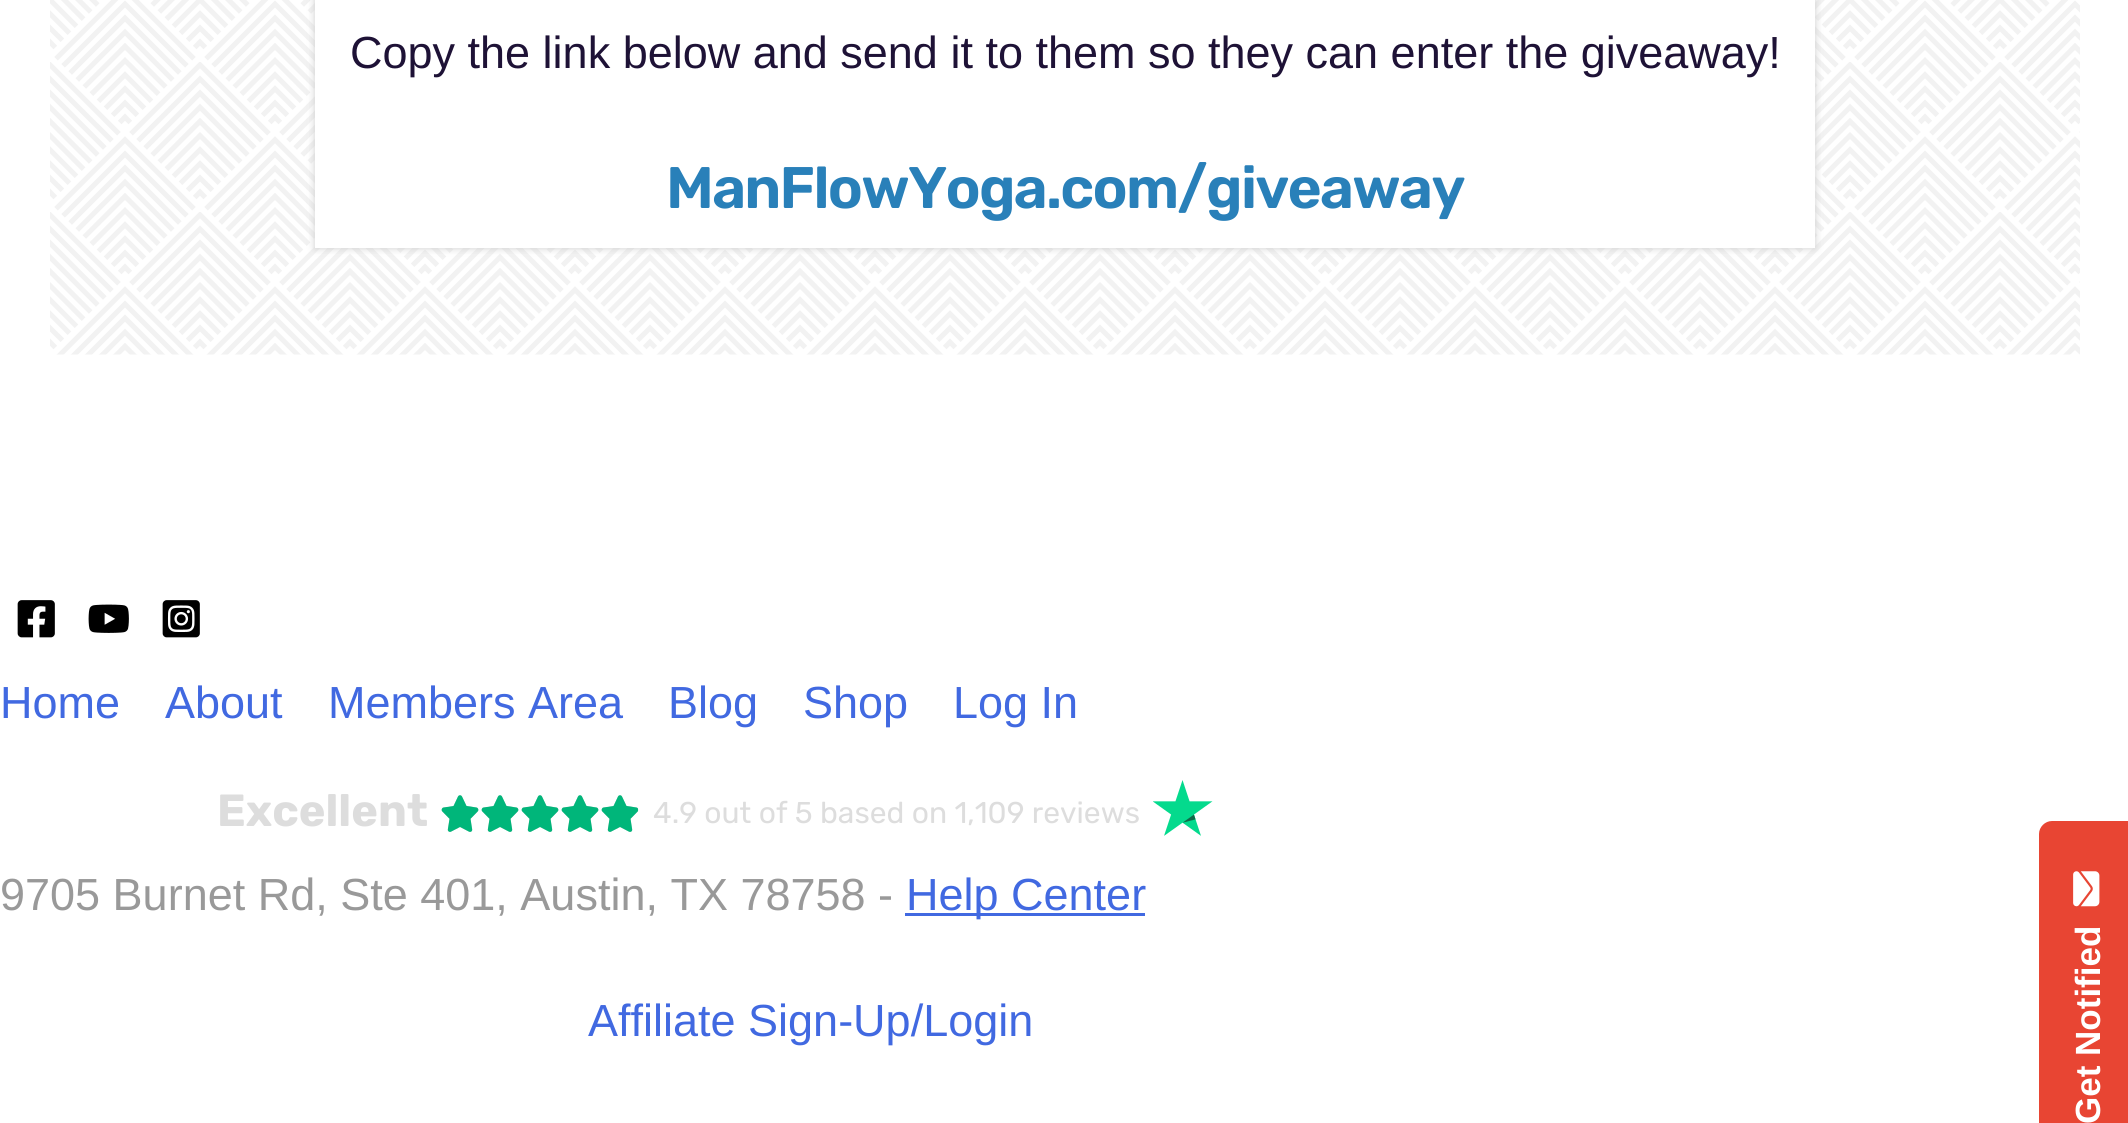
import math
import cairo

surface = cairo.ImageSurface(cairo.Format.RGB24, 2128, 1123)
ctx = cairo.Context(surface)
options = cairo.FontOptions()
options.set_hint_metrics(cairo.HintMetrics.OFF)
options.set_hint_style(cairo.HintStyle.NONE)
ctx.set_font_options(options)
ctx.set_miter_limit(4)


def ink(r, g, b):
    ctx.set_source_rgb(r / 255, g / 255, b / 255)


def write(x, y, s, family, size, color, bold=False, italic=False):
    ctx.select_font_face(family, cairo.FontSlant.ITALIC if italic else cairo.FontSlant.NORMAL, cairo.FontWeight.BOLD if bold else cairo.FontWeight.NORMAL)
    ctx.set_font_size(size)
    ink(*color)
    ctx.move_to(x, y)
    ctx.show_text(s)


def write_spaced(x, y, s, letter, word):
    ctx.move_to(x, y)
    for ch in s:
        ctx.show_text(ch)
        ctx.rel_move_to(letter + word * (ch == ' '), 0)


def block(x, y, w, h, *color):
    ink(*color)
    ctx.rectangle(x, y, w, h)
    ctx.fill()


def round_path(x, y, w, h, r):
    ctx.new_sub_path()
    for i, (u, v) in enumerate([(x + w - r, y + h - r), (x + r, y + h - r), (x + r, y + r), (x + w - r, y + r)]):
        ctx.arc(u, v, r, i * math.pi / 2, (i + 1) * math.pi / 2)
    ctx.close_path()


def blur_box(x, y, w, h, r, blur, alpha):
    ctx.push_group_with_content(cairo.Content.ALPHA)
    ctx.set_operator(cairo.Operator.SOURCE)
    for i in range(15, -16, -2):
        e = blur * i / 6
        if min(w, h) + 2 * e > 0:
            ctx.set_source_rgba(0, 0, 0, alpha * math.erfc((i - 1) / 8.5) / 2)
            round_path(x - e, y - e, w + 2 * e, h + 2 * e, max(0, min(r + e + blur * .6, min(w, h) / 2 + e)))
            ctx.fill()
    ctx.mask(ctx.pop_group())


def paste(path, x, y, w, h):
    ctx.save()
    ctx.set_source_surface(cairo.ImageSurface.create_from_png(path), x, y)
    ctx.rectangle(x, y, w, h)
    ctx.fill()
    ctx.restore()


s1 = dict(family="Liberation Sans", size=45, color=(30, 18, 54))
s2 = dict(family="Liberation Sans", size=45, color=(65, 105, 225))
s3 = dict(family="Rubik", size=45, color=(221, 221, 221), bold=True)
s4 = dict(family="Rubik", size=30, color=(221, 221, 221))
s5 = dict(family="Liberation Sans", size=45, color=(153, 153, 153))
s6 = dict(family="Liberation Sans", size=35, color=(255, 255, 255), bold=True)

ink(255, 255, 255)
ctx.paint()
paste("pic1.png", 50, 0, 2030, 355)
ink(204, 204, 204)
blur_box(315, -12, 1500, 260, 0, 4, 1)
block(315, 0, 1500, 248, 255, 255, 255)
write(350, 68, "Copy the link below and send it to them so they can enter the giveaway!", **s1)
ctx.select_font_face("Rubik SemiBold")
ctx.set_font_size(58.5)
ink(41, 128, 185)
write_spaced(666, 208, "ManFlowYoga.com/giveaway", -1.75, 0)
paste("pic2.png", 17, 600, 38, 38)
paste("pic3.png", 88, 604, 41, 29)
paste("pic4.png", 162, 600, 38, 38)
write(0, 718, "Home", **s2)
write(165, 718, "About", **s2)
write(328, 718, "Members Area", **s2)
write(668, 718, "Blog", **s2)
write(803, 718, "Shop", **s2)
write(953, 718, "Log In", **s2)
write(217, 826, "Excellent", **s3)
paste("pic5.png", 441, 795, 38, 37)
paste("pic6.png", 441, 795, 38, 37)
paste("pic5.png", 481, 795, 38, 37)
paste("pic6.png", 481, 795, 38, 37)
paste("pic5.png", 521, 795, 38, 37)
paste("pic6.png", 521, 795, 38, 37)
paste("pic5.png", 561, 795, 38, 37)
paste("pic6.png", 561, 795, 38, 37)
paste("pic5.png", 601, 795, 38, 37)
paste("pic7.png", 601, 795, 37, 37)
write(653, 823, "4.9 out of 5 based on 1,109 reviews", **s4)
paste("pic8.png", 1153, 780, 60, 56)
write(0, 910, "9705 Burnet Rd, Ste 401, Austin, TX 78758 -", **s5)
block(905, 913, 240, 3, 65, 105, 225)
write(906, 910, "Help Center", **s2)
write(588, 1036, "Affiliate Sign-Up/Login", **s2)
ink(232, 69, 51)
ctx.new_path()
ctx.move_to(2039, 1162)
ctx.line_to(2039, 834)
ctx.curve_to(2039, 827, 2045, 821, 2052, 821)
ctx.line_to(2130, 821)
ctx.line_to(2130, 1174)
ctx.line_to(2052, 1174)
ctx.curve_to(2045, 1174, 2039, 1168, 2039, 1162)
ctx.close_path()
ctx.fill()
paste("pic9.png", 2073, 871, 27, 36)
ctx.save()
ctx.translate(2100, 1124)
ctx.rotate(-90 * math.pi / 180)
write(0, 0, "Get Notified", **s6)
ctx.restore()
surface.write_to_png("screenshot.png")
